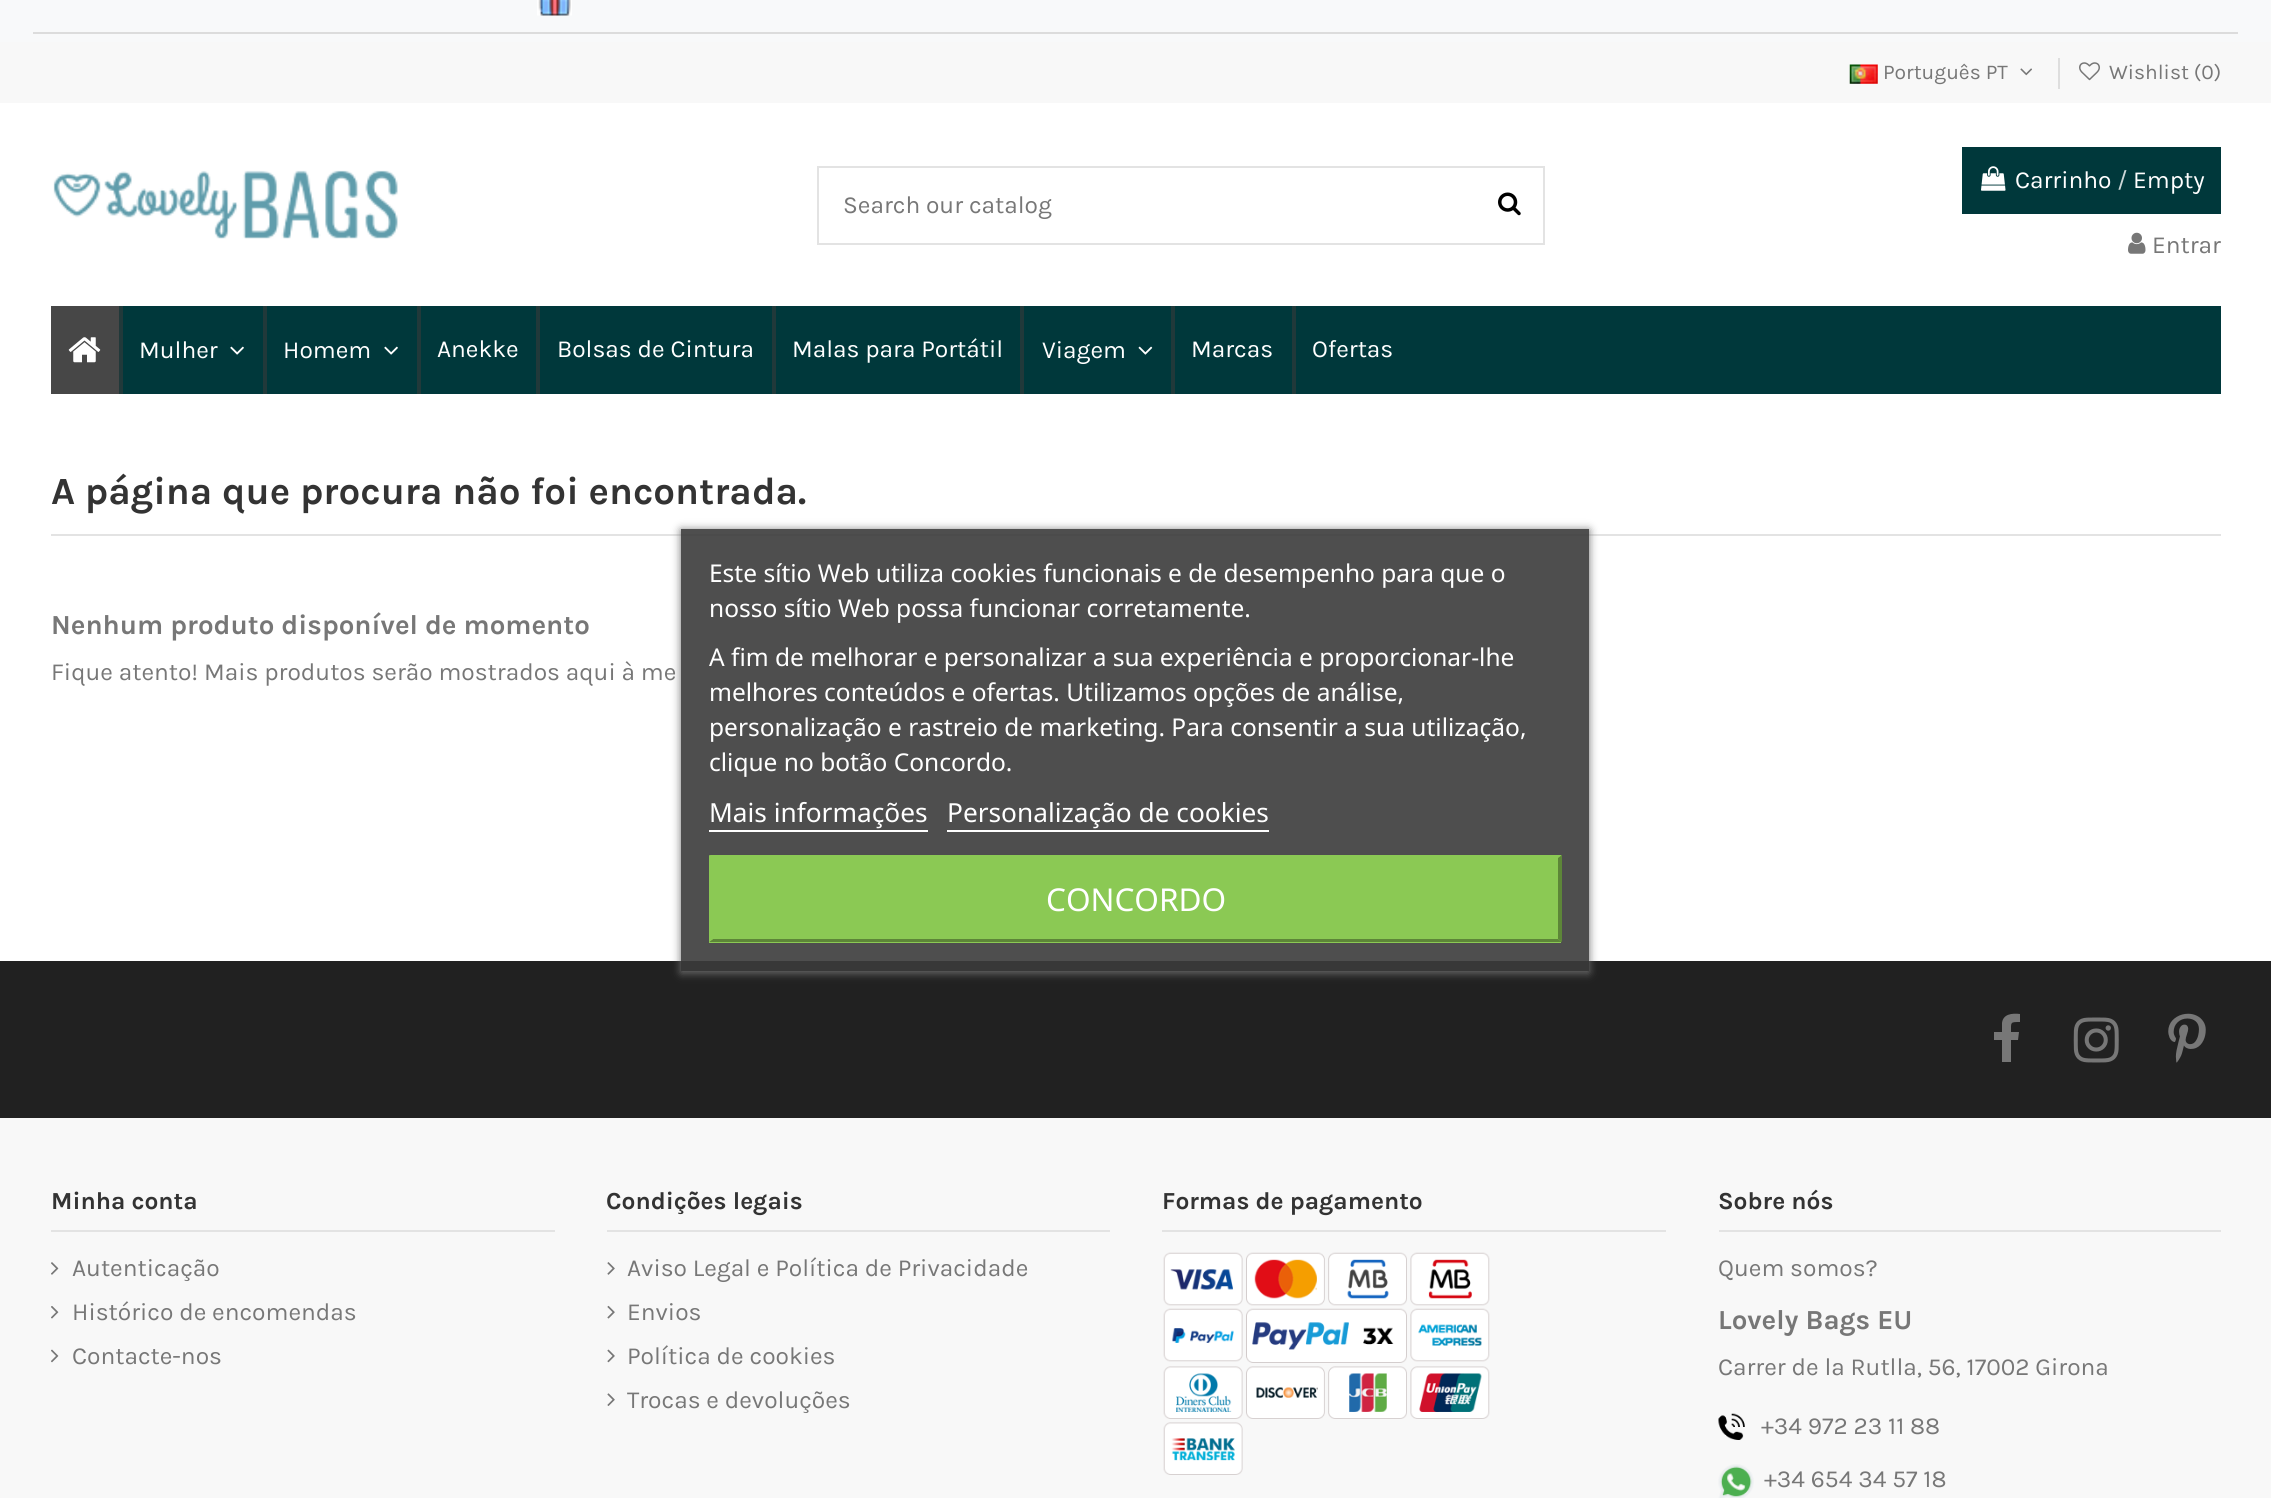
import math
import cairo

surface = cairo.ImageSurface(cairo.Format.RGB24, 2271, 1498)
ctx = cairo.Context(surface)
options = cairo.FontOptions()
options.set_hint_metrics(cairo.HintMetrics.OFF)
options.set_hint_style(cairo.HintStyle.NONE)
ctx.set_font_options(options)
ctx.set_miter_limit(4)


def ink(r, g, b):
    ctx.set_source_rgb(r / 255, g / 255, b / 255)


def write(x, y, s, family, size, color, bold=False, italic=False):
    ctx.select_font_face(family, cairo.FontSlant.ITALIC if italic else cairo.FontSlant.NORMAL, cairo.FontWeight.BOLD if bold else cairo.FontWeight.NORMAL)
    ctx.set_font_size(size)
    ink(*color)
    ctx.move_to(x, y)
    ctx.show_text(s)


def block(x, y, w, h, *color):
    ink(*color)
    ctx.rectangle(x, y, w, h)
    ctx.fill()


def round_path(x, y, w, h, r):
    ctx.new_sub_path()
    for i, (u, v) in enumerate([(x + w - r, y + h - r), (x + r, y + h - r), (x + r, y + r), (x + w - r, y + r)]):
        ctx.arc(u, v, r, i * math.pi / 2, (i + 1) * math.pi / 2)
    ctx.close_path()


def blur_box(x, y, w, h, r, blur, alpha):
    ctx.push_group_with_content(cairo.Content.ALPHA)
    ctx.set_operator(cairo.Operator.SOURCE)
    for i in range(15, -16, -2):
        e = blur * i / 6
        if min(w, h) + 2 * e > 0:
            ctx.set_source_rgba(0, 0, 0, alpha * math.erfc((i - 1) / 8.5) / 2)
            round_path(x - e, y - e, w + 2 * e, h + 2 * e, max(0, min(r + e + blur * .6, min(w, h) / 2 + e)))
            ctx.fill()
    ctx.mask(ctx.pop_group())


def paste(path, x, y, w, h):
    ctx.save()
    ctx.set_source_surface(cairo.ImageSurface.create_from_png(path), x, y)
    ctx.rectangle(x, y, w, h)
    ctx.fill()
    ctx.restore()


s1 = dict(family="Karla", size=21, color=(119, 119, 119))
s2 = dict(family="Karla", size=24.5, color=(119, 119, 119))
s3 = dict(family="Karla", size=24.5, color=(255, 255, 255))
s4 = dict(family="Karla", size=24.5, color=(204, 215, 216))
s5 = dict(family="Karla", size=38.5, color=(51, 51, 51), bold=True)
s6 = dict(family="Karla", size=27.6, color=(119, 119, 119), bold=True)
s7 = dict(family="Noto Sans", size=24.5, color=(255, 255, 255))
s8 = dict(family="Noto Sans", size=26.25, color=(255, 255, 255))
s9 = dict(family="Noto Sans", size=31.5, color=(255, 255, 255))
s10 = dict(family="Karla", size=24.5, color=(51, 51, 51), bold=True)

ink(255, 255, 255)
ctx.paint()
block(0, 0, 2271, 42, 248, 249, 250)
block(33, 32, 2205, 2, 220, 220, 220)
paste("pic1.png", 537, 0, 35, 16)
block(0, 42, 2271, 61, 248, 248, 248)
paste("pic2.png", 1849, 64, 29, 20)
write(1883, 79, "Português PT", **s1)
paste("pic3.png", 2020, 68, 12, 8)
block(2058, 58, 2, 31, 222, 222, 222)
paste("pic4.png", 2079, 62, 21, 19)
write(2109, 79, "Wishlist (0)", **s1)
paste("pic5.png", 53, 170, 345, 69)
ctx.rectangle(818, 167, 726, 77)
ink(227, 227, 227)
ctx.stroke()
write(843, 213, "Search our catalog", **s2)
paste("pic6.png", 1498, 192, 23, 24)
block(1962, 147, 259, 67, 0, 56, 59)
paste("pic7.png", 1981, 166, 25, 25)
write(2015, 188, "Carrinho", **s3)
write(2117, 188, "/", **s4)
write(2133, 188, "Empty", **s3)
paste("pic8.png", 2128, 232, 18, 22)
write(2152, 253, "Entrar", **s2)
block(123, 306, 2098, 88, 0, 56, 59)
block(51, 306, 68, 88, 71, 71, 71)
paste("pic9.png", 68, 337, 33, 26)
block(119, 306, 4, 88, 33, 57, 58)
write(139, 358, "Mulher", **s3)
paste("pic10.png", 230, 346, 14, 9)
block(263, 306, 4, 88, 33, 57, 58)
write(283, 358, "Homem", **s3)
paste("pic10.png", 384, 346, 14, 9)
block(417, 306, 4, 88, 33, 57, 58)
write(437, 357, "Anekke", **s3)
block(536, 306, 4, 88, 33, 57, 58)
write(557, 357, "Bolsas de Cintura", **s3)
block(772, 306, 4, 88, 33, 57, 58)
write(792, 357, "Malas para Portátil", **s3)
block(1020, 306, 4, 88, 33, 57, 58)
write(1042, 358, "Viagem", **s3)
paste("pic11.png", 1138, 346, 15, 9)
block(1171, 306, 4, 88, 33, 57, 58)
write(1191, 357, "Marcas", **s3)
block(1292, 306, 4, 88, 33, 57, 58)
write(1312, 357, "Ofertas", **s3)
block(51, 534, 2170, 2, 227, 227, 227)
write(51, 504, "A página que procura não foi encontrada.", **s5)
write(51, 634, "Nenhum produto disponível de momento", **s6)
write(51, 680, "Fique atento! Mais produtos serão mostrados aqui à me", **s2)
block(0, 1118, 2271, 380, 248, 248, 248)
block(0, 961, 2271, 157, 33, 33, 33)
ctx.save()
ctx.set_fill_rule(cairo.FillRule.EVEN_ODD)
ctx.new_path()
ctx.move_to(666, 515)
ctx.line_to(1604, 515)
ctx.line_to(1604, 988)
ctx.line_to(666, 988)
ctx.close_path()
ctx.move_to(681, 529)
ctx.line_to(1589, 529)
ctx.line_to(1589, 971)
ctx.line_to(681, 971)
ctx.close_path()
ctx.clip()
ink(112, 112, 112)
blur_box(681, 530, 908, 443, 0, 4.5, 1)
ctx.restore()
ctx.set_source_rgba(0.231, 0.231, 0.231, 0.9)
ctx.rectangle(681, 529, 908, 442)
ctx.fill()
write(709, 582, "Este sítio Web utiliza cookies funcionais e de desempenho para que o", **s7)
write(709, 617, "nosso sítio Web possa funcionar corretamente.", **s7)
write(709, 666, "A fim de melhorar e personalizar a sua experiência e proporcionar-lhe", **s7)
write(709, 701, "melhores conteúdos e ofertas. Utilizamos opções de análise,", **s7)
write(709, 736, "personalização e rastreio de marketing. Para consentir a sua utilização,", **s7)
write(709, 771, "clique no botão Concordo.", **s7)
write(709, 822, "Mais informações", **s8)
block(709, 830, 219, 2, 255, 255, 255)
write(947, 822, "Personalização de cookies", **s8)
block(947, 830, 322, 2, 255, 255, 255)
block(709, 856, 852, 87, 139, 201, 84)
ctx.new_path()
ctx.move_to(709, 855)
ctx.line_to(1562, 855)
ctx.line_to(1558, 858)
ctx.line_to(713, 858)
ctx.close_path()
ctx.fill()
ink(93, 134, 56)
ctx.new_path()
ctx.move_to(1562, 855)
ctx.line_to(1562, 942)
ctx.line_to(1558, 939)
ctx.line_to(1558, 858)
ctx.close_path()
ctx.fill()
ctx.new_path()
ctx.move_to(1562, 942)
ctx.line_to(709, 942)
ctx.line_to(713, 939)
ctx.line_to(1558, 939)
ctx.close_path()
ctx.fill()
ink(139, 201, 84)
ctx.new_path()
ctx.move_to(709, 942)
ctx.line_to(709, 855)
ctx.line_to(713, 858)
ctx.line_to(713, 939)
ctx.close_path()
ctx.fill()
write(1046, 911, "CONCORDO", **s9)
block(51, 1230, 504, 2, 227, 227, 227)
write(51, 1209, "Minha conta", **s10)
paste("pic12.png", 51, 1262, 8, 13)
write(72, 1276, "Autenticação", **s2)
paste("pic13.png", 51, 1306, 8, 13)
write(72, 1320, "Histórico de encomendas", **s2)
paste("pic14.png", 51, 1349, 8, 14)
write(72, 1364, "Contacte-nos", **s2)
block(607, 1230, 503, 2, 227, 227, 227)
write(606, 1209, "Condições legais", **s10)
paste("pic15.png", 607, 1262, 8, 13)
write(627, 1276, "Aviso Legal e Política de Privacidade", **s2)
paste("pic16.png", 607, 1305, 8, 14)
write(627, 1320, "Envios", **s2)
paste("pic17.png", 607, 1349, 8, 14)
write(627, 1364, "Política de cookies", **s2)
paste("pic18.png", 607, 1393, 8, 13)
write(627, 1408, "Trocas e devoluções", **s2)
block(1162, 1230, 504, 2, 227, 227, 227)
write(1162, 1209, "Formas de pagamento", **s10)
paste("pic19.png", 1163, 1252, 80, 54)
paste("pic20.png", 1246, 1252, 79, 54)
paste("pic21.png", 1328, 1252, 79, 54)
paste("pic22.png", 1410, 1252, 80, 54)
paste("pic23.png", 1163, 1308, 80, 54)
paste("pic24.png", 1246, 1308, 161, 55)
paste("pic25.png", 1410, 1308, 80, 54)
paste("pic26.png", 1163, 1366, 80, 53)
paste("pic27.png", 1246, 1366, 79, 53)
paste("pic28.png", 1328, 1366, 79, 53)
paste("pic29.png", 1410, 1366, 80, 53)
paste("pic30.png", 1163, 1422, 80, 53)
block(1719, 1230, 502, 2, 227, 227, 227)
write(1718, 1209, "Sobre nós", **s10)
write(1718, 1276, "Quem somos?", **s2)
write(1718, 1329, "Lovely Bags EU", **s6)
write(1718, 1375, "Carrer de la Rutlla, 56, 17002 Girona", **s2)
paste("pic31.png", 1718, 1413, 27, 27)
write(1761, 1434, "+34 972 23 11 88", **s2)
paste("pic32.png", 1718, 1464, 36, 34)
write(1764, 1487, "+34 654 34 57 18", **s2)
ctx.new_path()
ctx.move_to(2020, 1014)
ctx.line_to(2020, 1022)
ctx.curve_to(2010, 1022, 2011, 1022, 2011, 1032)
ctx.line_to(2019, 1032)
ctx.line_to(2018, 1040)
ctx.line_to(2011, 1040)
ctx.line_to(2011, 1062)
ctx.line_to(2002, 1062)
ctx.line_to(2002, 1040)
ctx.line_to(1994, 1040)
ctx.line_to(1994, 1032)
ctx.line_to(2002, 1032)
ctx.line_to(2002, 1023)
ctx.curve_to(2003, 1014, 2012, 1013, 2020, 1014)
ctx.close_path()
ctx.fill()
paste("pic33.png", 2073, 1017, 46, 46)
paste("pic34.png", 2168, 1013, 38, 50)
surface.write_to_png("screenshot.png")
